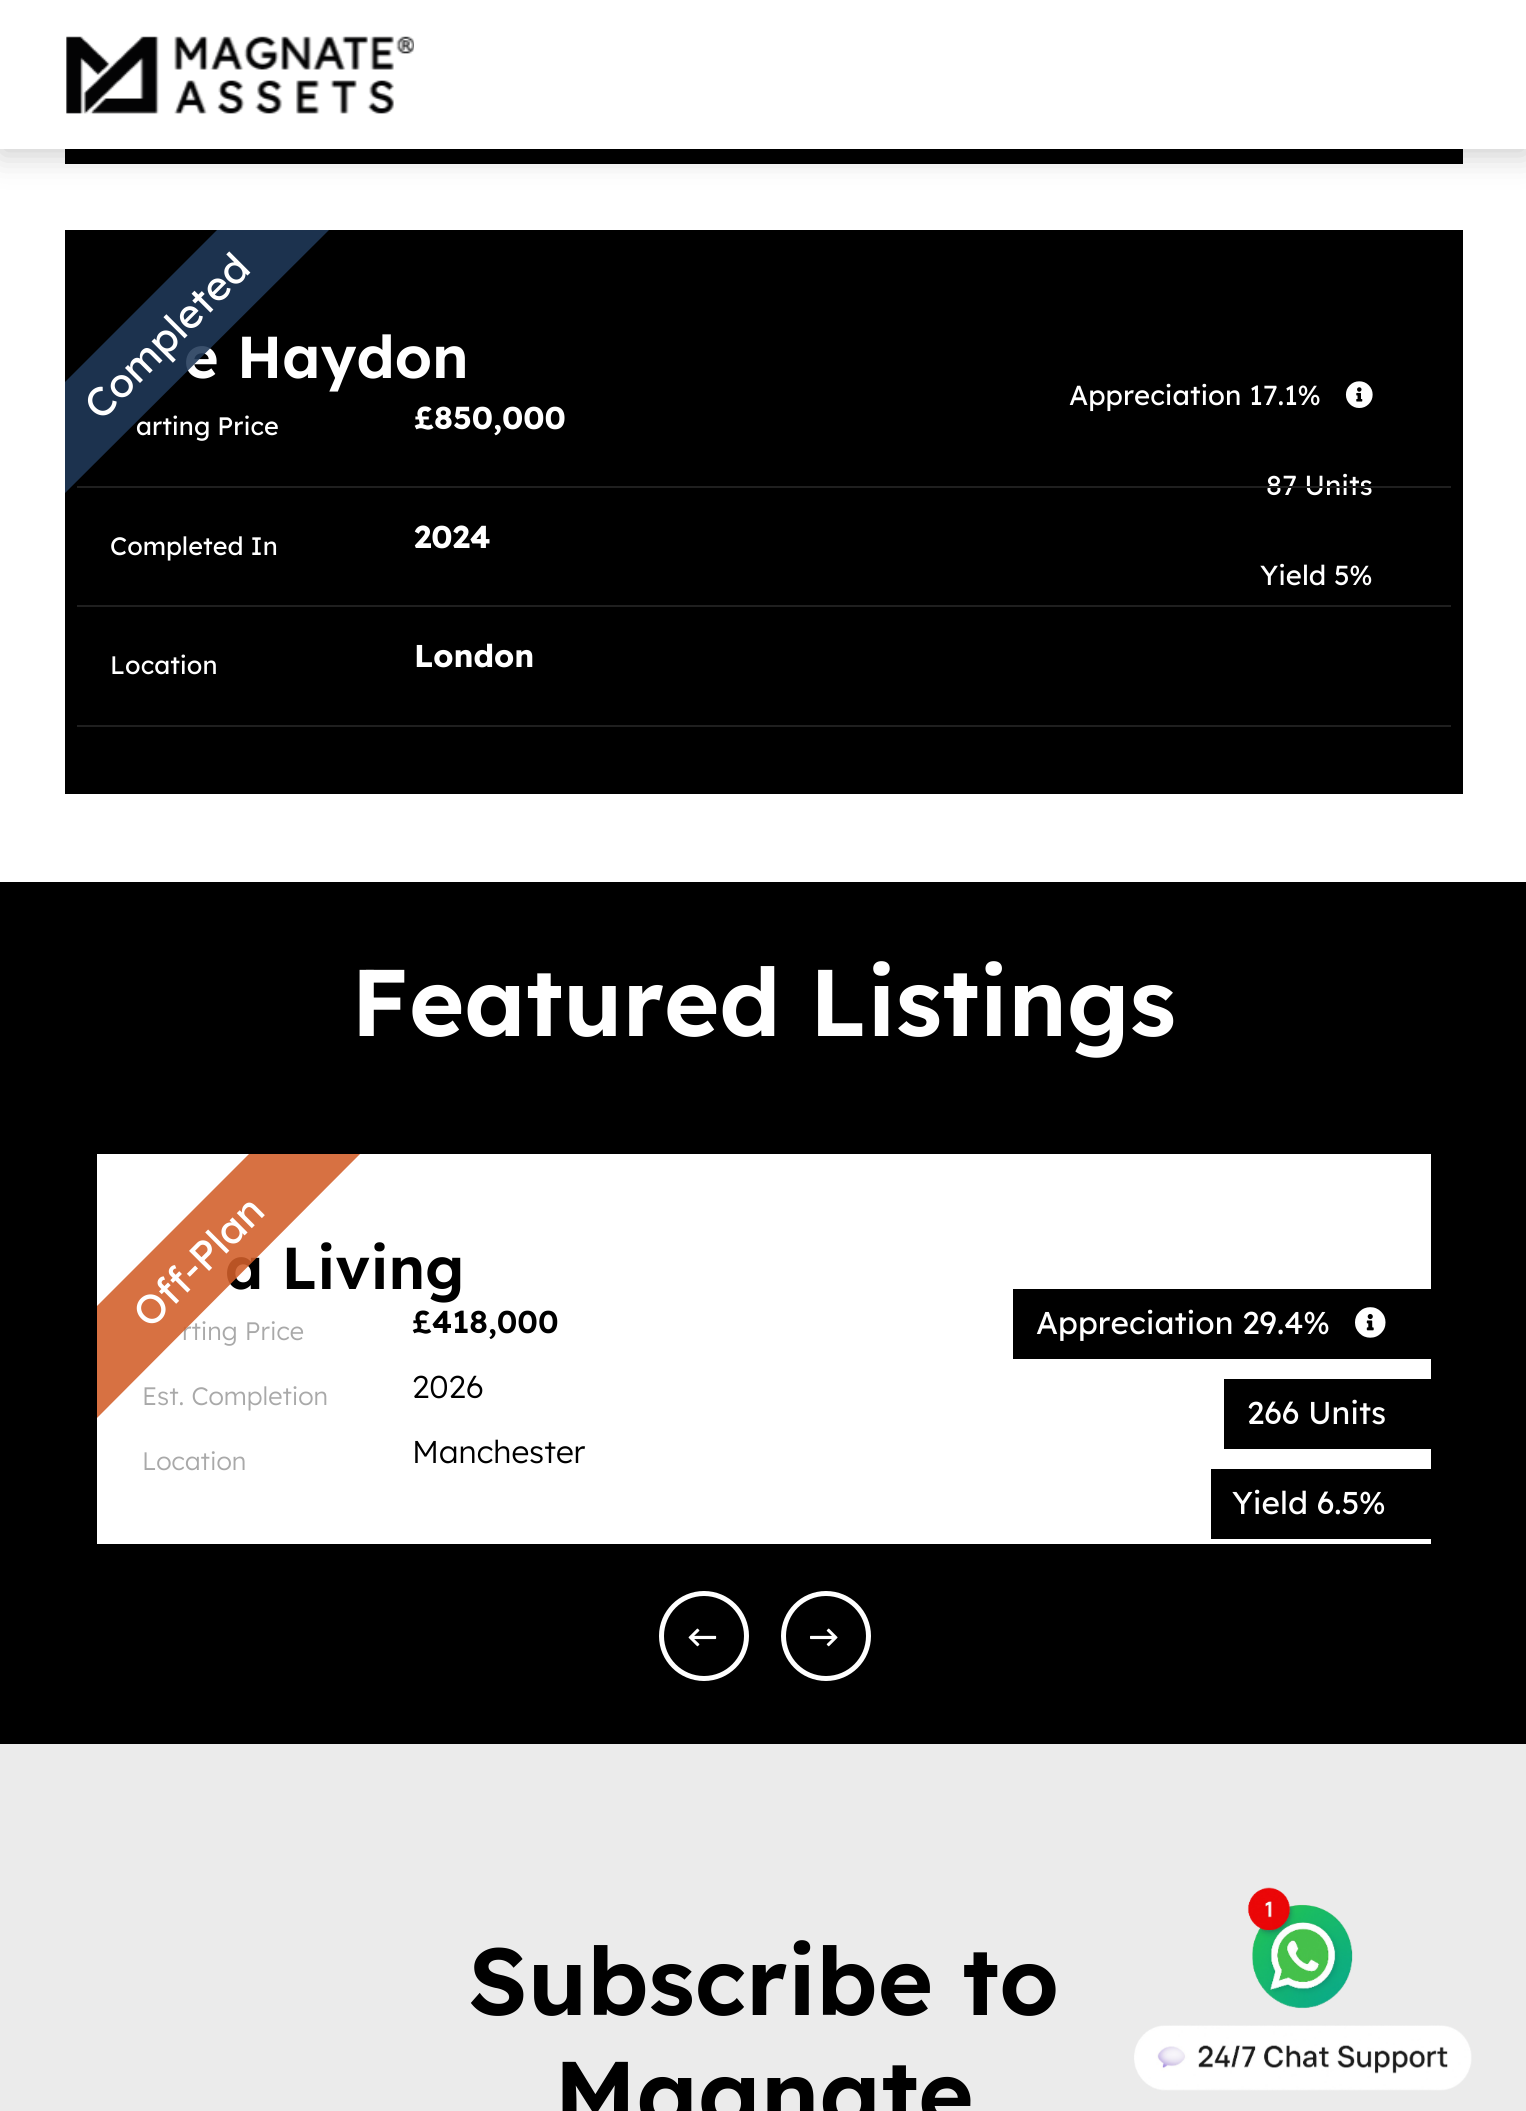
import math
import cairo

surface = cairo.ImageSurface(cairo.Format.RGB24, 1526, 2111)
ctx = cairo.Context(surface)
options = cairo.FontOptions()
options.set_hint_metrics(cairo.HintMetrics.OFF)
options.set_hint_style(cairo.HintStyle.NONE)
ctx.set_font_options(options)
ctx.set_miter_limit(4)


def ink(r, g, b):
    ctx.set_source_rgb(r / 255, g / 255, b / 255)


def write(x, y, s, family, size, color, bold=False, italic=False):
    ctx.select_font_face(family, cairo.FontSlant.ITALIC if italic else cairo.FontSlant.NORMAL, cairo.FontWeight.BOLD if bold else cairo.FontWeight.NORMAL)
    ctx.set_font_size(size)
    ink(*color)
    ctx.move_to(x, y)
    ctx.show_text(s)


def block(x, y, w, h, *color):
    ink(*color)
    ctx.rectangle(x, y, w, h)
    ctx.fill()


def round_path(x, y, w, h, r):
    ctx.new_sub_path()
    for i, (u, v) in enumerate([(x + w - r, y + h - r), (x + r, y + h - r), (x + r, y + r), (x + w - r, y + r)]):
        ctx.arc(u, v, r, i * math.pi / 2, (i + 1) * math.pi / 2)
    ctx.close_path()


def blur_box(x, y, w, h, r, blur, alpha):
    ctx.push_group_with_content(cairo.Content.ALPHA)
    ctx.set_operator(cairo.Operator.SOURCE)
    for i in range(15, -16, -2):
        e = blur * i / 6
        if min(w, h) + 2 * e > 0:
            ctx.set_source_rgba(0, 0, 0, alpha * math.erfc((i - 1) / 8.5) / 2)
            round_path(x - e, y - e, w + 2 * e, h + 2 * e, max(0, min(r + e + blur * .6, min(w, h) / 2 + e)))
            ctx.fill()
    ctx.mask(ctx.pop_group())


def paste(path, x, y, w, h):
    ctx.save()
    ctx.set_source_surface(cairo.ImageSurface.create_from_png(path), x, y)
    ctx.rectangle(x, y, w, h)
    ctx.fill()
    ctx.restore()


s1 = dict(family="Lexend SemiBold", size=59, color=(255, 255, 255))
s2 = dict(family="Lexend", size=27.5, color=(255, 255, 255))
s3 = dict(family="Lexend", size=25.25, color=(255, 255, 255))
s4 = dict(family="Lexend", size=40.5, color=(255, 255, 255))
s5 = dict(family="Lexend", size=31.5, color=(255, 255, 255), bold=True)
s6 = dict(family="Lexend SemiBold", size=94.5, color=(255, 255, 255))
s7 = dict(family="Lexend SemiBold", size=59, color=(0, 0, 0))
s8 = dict(family="Lexend Light", size=25.25, color=(169, 169, 169))
s9 = dict(family="Lexend SemiBold", size=31.5, color=(0, 0, 0))
s10 = dict(family="Lexend Light", size=31.5, color=(0, 0, 0))
s11 = dict(family="Lexend", size=31.5, color=(255, 255, 255))
s12 = dict(family="Lexend SemiBold", size=94.5, color=(0, 0, 0))

ink(255, 255, 255)
ctx.paint()
block(65, 149, 1398, 15, 0, 0, 0)
ink(0, 0, 0)
blur_box(0, 7, 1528, 148, 0, 16, 0.2)
block(0, 0, 1526, 149, 255, 255, 255)
paste("pic1.png", 66, 36, 348, 78)
block(65, 230, 1398, 564, 0, 0, 0)
write(184, 378, "e Haydon", **s1)
write(1266, 495, "87 Units", **s2)
block(77, 486, 1374, 2, 31, 31, 31)
write(136, 435, "arting Price", **s3)
ctx.save()
ctx.rectangle(65, 230, 1398, 564)
ctx.clip()
ctx.set_source_rgba(0.125, 0.224, 0.349, 0.88)
ctx.new_path()
ctx.move_to(3, 444)
ctx.line_to(274, 173)
ctx.line_to(330, 229)
ctx.line_to(59, 499)
ctx.close_path()
ctx.fill()
ctx.restore()
ctx.save()
ctx.translate(101, 422)
ctx.rotate(-45 * math.pi / 180)
write(0, 0, "Completed", **s4)
ctx.restore()
write(414, 429, "£850,000", **s5)
block(77, 605, 1374, 2, 31, 31, 31)
write(110, 555, "Completed In", **s3)
write(414, 548, "2024", **s5)
block(77, 725, 1374, 2, 31, 31, 31)
write(110, 674, "Location", **s3)
write(414, 667, "London", **s5)
write(1069, 405, "Appreciation 17.1%", **s2)
paste("pic2.png", 1345, 381, 28, 27)
write(1260, 585, "Yield 5%", **s2)
block(0, 882, 1526, 862, 0, 0, 0)
write(351, 1036, "Featured Listings", **s6)
block(97, 1154, 1334, 390, 255, 255, 255)
write(225, 1289, "a Living", **s7)
write(182, 1340, "rting Price", **s8)
write(142, 1405, "Est. Completion", **s8)
ctx.save()
ctx.rectangle(97, 1154, 1334, 390)
ctx.clip()
ctx.set_source_rgba(0.824, 0.369, 0.161, 0.88)
ctx.new_path()
ctx.move_to(35, 1368)
ctx.line_to(305, 1098)
ctx.line_to(361, 1153)
ctx.line_to(91, 1424)
ctx.close_path()
ctx.fill()
ctx.restore()
ctx.save()
ctx.translate(150, 1330)
ctx.rotate(-45 * math.pi / 180)
write(0, 0, "Off-Plan", **s4)
ctx.restore()
write(412, 1333, "£418,000", **s9)
write(412, 1398, "2026", **s10)
write(142, 1470, "Location", **s8)
write(412, 1463, "Manchester", **s10)
block(1013, 1289, 418, 70, 0, 0, 0)
write(1036, 1334, "Appreciation 29.4%", **s11)
paste("pic3.png", 1355, 1307, 31, 31)
block(1224, 1379, 207, 70, 0, 0, 0)
write(1247, 1424, "266 Units", **s11)
block(1211, 1469, 220, 70, 0, 0, 0)
write(1232, 1514, "Yield 6.5%", **s11)
ctx.new_path()
ctx.arc(704, 1636, 42.5, 0, 2 * math.pi)
ctx.set_line_width(5)
ctx.stroke()
paste("pic4.png", 688, 1628, 29, 19)
ctx.arc(826, 1636, 42.5, 0, 2 * math.pi)
ctx.stroke()
paste("pic5.png", 810, 1628, 28, 19)
block(0, 1744, 1526, 367, 235, 235, 235)
write(468, 2015, "Subscribe to", **s12)
write(554, 2128, "Magnate", **s12)
paste("pic6.png", 1134, 1887, 338, 204)
surface.write_to_png("screenshot.png")
